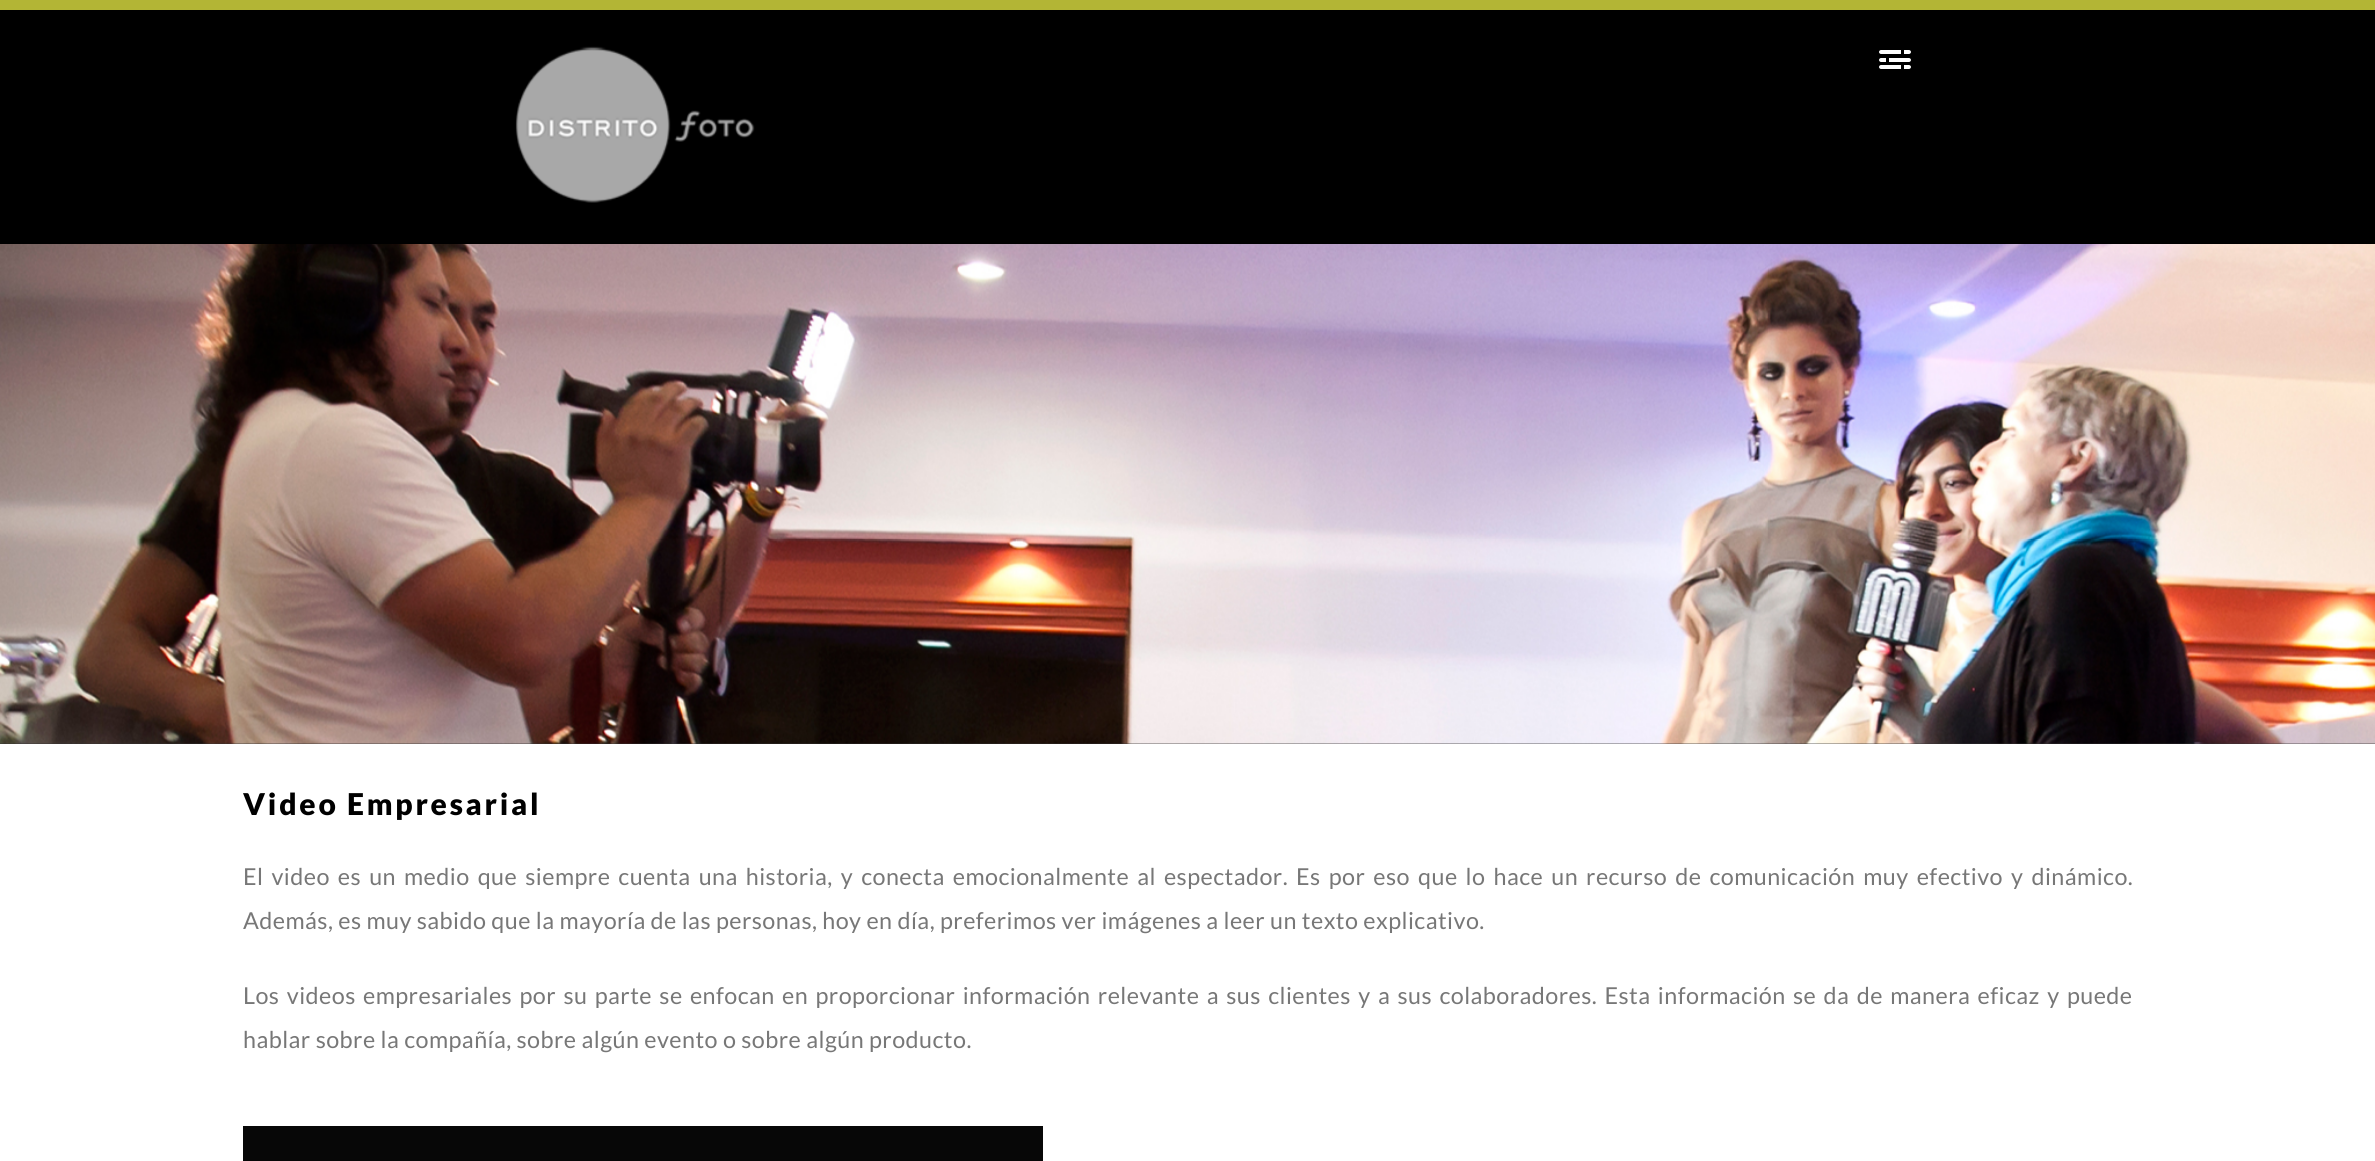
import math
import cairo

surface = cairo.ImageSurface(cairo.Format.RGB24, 2375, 1161)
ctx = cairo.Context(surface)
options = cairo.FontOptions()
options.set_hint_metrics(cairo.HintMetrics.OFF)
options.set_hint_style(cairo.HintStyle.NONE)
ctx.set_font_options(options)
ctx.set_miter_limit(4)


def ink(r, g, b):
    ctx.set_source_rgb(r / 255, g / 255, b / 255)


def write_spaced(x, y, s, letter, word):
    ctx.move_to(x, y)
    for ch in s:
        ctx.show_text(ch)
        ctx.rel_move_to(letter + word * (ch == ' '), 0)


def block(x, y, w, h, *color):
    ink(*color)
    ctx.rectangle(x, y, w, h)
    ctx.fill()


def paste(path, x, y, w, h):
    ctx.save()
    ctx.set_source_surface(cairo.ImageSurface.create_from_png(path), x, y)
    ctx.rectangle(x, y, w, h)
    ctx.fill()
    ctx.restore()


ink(255, 255, 255)
ctx.paint()
block(0, 0, 2375, 10, 179, 181, 53)
block(0, 10, 2375, 234, 0, 0, 0)
paste("pic1.png", 515, 46, 240, 157)
ink(255, 255, 255)
ctx.new_path()
ctx.move_to(1881, 50)
ctx.line_to(1901, 50)
ctx.line_to(1901, 54)
ctx.line_to(1881, 54)
ctx.curve_to(1880, 54, 1879, 53, 1879, 52)
ctx.curve_to(1879, 51, 1880, 50, 1881, 50)
ctx.close_path()
ctx.fill()
ctx.new_path()
ctx.move_to(1904, 50)
ctx.line_to(1909, 50)
ctx.curve_to(1910, 50, 1911, 51, 1911, 52)
ctx.curve_to(1911, 53, 1910, 54, 1909, 54)
ctx.line_to(1904, 54)
ctx.close_path()
ctx.fill()
ctx.new_path()
ctx.move_to(1881, 58)
ctx.line_to(1886, 58)
ctx.line_to(1886, 62)
ctx.line_to(1881, 62)
ctx.curve_to(1880, 62, 1879, 61, 1879, 60)
ctx.curve_to(1879, 59, 1880, 58, 1881, 58)
ctx.close_path()
ctx.fill()
ctx.new_path()
ctx.move_to(1889, 58)
ctx.line_to(1909, 58)
ctx.curve_to(1910, 58, 1911, 59, 1911, 60)
ctx.curve_to(1911, 61, 1910, 62, 1909, 62)
ctx.line_to(1889, 62)
ctx.close_path()
ctx.fill()
ctx.new_path()
ctx.move_to(1881, 65)
ctx.line_to(1901, 65)
ctx.line_to(1901, 69)
ctx.line_to(1881, 69)
ctx.curve_to(1880, 69, 1879, 68, 1879, 67)
ctx.curve_to(1879, 66, 1880, 65, 1881, 65)
ctx.close_path()
ctx.fill()
ctx.new_path()
ctx.move_to(1904, 65)
ctx.line_to(1909, 65)
ctx.curve_to(1910, 65, 1911, 66, 1911, 67)
ctx.curve_to(1911, 68, 1910, 69, 1909, 69)
ctx.line_to(1904, 69)
ctx.close_path()
ctx.fill()
block(0, 743, 2375, 1, 51, 51, 51)
paste("pic2.png", 0, 244, 2375, 500)
ctx.select_font_face("Lato Black")
ctx.set_font_size(30)
ink(0, 0, 0)
write_spaced(243, 815, "Video Empresarial", 2.75, 0)
ctx.select_font_face("Lato")
ctx.set_font_size(23.33)
ink(119, 119, 119)
write_spaced(243, 885, "El video es un medio que siempre cuenta una historia, y conecta emocionalmente al espectador. Es por eso que lo hace un recurso de comunicación muy efectivo y dinámico.", 0.44, 3.1)
write_spaced(243, 929, "Además, es muy sabido que la mayoría de las personas, hoy en día, preferimos ver imágenes a leer un texto explicativo.", 0.44, 0)
write_spaced(243, 1004, "Los videos empresariales por su parte se enfocan en proporcionar información relevante a sus clientes y a sus colaboradores. Esta información se da de manera eficaz y puede", 0.44, 2.4)
write_spaced(243, 1048, "hablar sobre la compañía, sobre algún evento o sobre algún producto.", 0.44, 0)
block(243, 1126, 800, 35, 7, 7, 7)
surface.write_to_png("screenshot.png")
